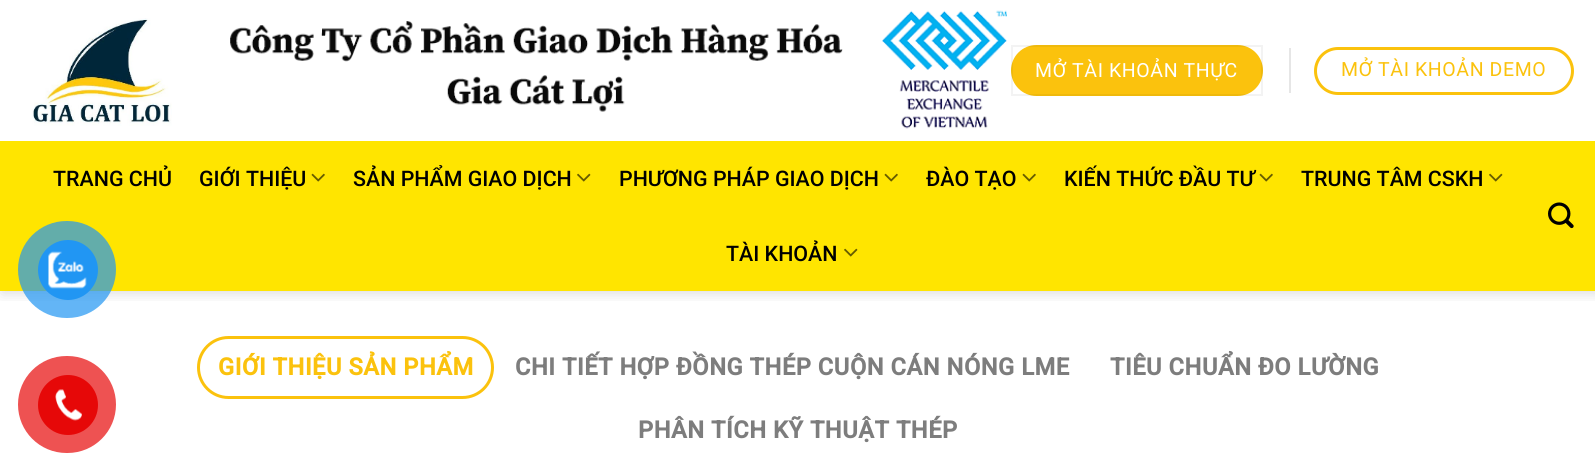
import math
import cairo

surface = cairo.ImageSurface(cairo.Format.RGB24, 1595, 472)
ctx = cairo.Context(surface)
options = cairo.FontOptions()
options.set_hint_metrics(cairo.HintMetrics.OFF)
options.set_hint_style(cairo.HintStyle.NONE)
ctx.set_font_options(options)
ctx.set_miter_limit(4)


def ink(r, g, b):
    ctx.set_source_rgb(r / 255, g / 255, b / 255)


def write(x, y, s, family, size, color, bold=False, italic=False):
    ctx.select_font_face(family, cairo.FontSlant.ITALIC if italic else cairo.FontSlant.NORMAL, cairo.FontWeight.BOLD if bold else cairo.FontWeight.NORMAL)
    ctx.set_font_size(size)
    ink(*color)
    ctx.move_to(x, y)
    ctx.show_text(s)


def write_spaced(x, y, s, letter, word):
    ctx.move_to(x, y)
    for ch in s:
        ctx.show_text(ch)
        ctx.rel_move_to(letter + word * (ch == ' '), 0)


def block(x, y, w, h, *color):
    ink(*color)
    ctx.rectangle(x, y, w, h)
    ctx.fill()


def round_path(x, y, w, h, r):
    ctx.new_sub_path()
    for i, (u, v) in enumerate([(x + w - r, y + h - r), (x + r, y + h - r), (x + r, y + r), (x + w - r, y + r)]):
        ctx.arc(u, v, r, i * math.pi / 2, (i + 1) * math.pi / 2)
    ctx.close_path()


def blur_box(x, y, w, h, r, blur, alpha):
    ctx.push_group_with_content(cairo.Content.ALPHA)
    ctx.set_operator(cairo.Operator.SOURCE)
    for i in range(15, -16, -2):
        e = blur * i / 6
        if min(w, h) + 2 * e > 0:
            ctx.set_source_rgba(0, 0, 0, alpha * math.erfc((i - 1) / 8.5) / 2)
            round_path(x - e, y - e, w + 2 * e, h + 2 * e, max(0, min(r + e + blur * .6, min(w, h) / 2 + e)))
            ctx.fill()
    ctx.mask(ctx.pop_group())


def paste(path, x, y, w, h):
    ctx.save()
    ctx.set_source_surface(cairo.ImageSurface.create_from_png(path), x, y)
    ctx.rectangle(x, y, w, h)
    ctx.fill()
    ctx.restore()


s1 = dict(family="Roboto Medium", size=21.4, color=(0, 0, 0))

ink(255, 255, 255)
ctx.paint()
ctx.save()
ctx.rectangle(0, 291, 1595, 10)
ctx.clip()
ink(0, 0, 0)
blur_box(2, 2, 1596, 291, 0, 7.5, 0.15)
ctx.restore()
paste("pic1.png", 32, 18, 140, 108)
paste("pic2.png", 230, 10, 777, 119)
ink(251, 194, 13)
round_path(1011, 45, 252, 51, 25.5)
ctx.fill()
ctx.rectangle(1012, 46, 250, 49)
ctx.set_source_rgba(0, 0, 0, 0.05)
ctx.stroke()
ctx.select_font_face("Roboto")
ctx.set_font_size(19.5)
ink(255, 255, 255)
write_spaced(1035, 77, "MỞ TÀI KHOẢN THỰC", 0.6, 0)
block(1289, 48, 2, 45, 230, 230, 230)
round_path(1315.5, 48.5, 257, 45, 22.5)
ink(251, 194, 13)
ctx.set_line_width(3)
ctx.stroke()
write_spaced(1341, 76, "MỞ TÀI KHOẢN DEMO", 0.6, 0)
block(0, 141, 1595, 150, 255, 229, 0)
write(53, 186, "TRANG CHỦ", **s1)
write(199, 186, "GIỚI THIỆU", **s1)
paste("pic3.png", 311, 173, 14, 9)
write(353, 186, "SẢN PHẨM GIAO DỊCH", **s1)
paste("pic4.png", 577, 173, 14, 9)
write(619, 186, "PHƯƠNG PHÁP GIAO DỊCH", **s1)
paste("pic3.png", 884, 173, 14, 9)
write(926, 186, "ĐÀO TẠO", **s1)
paste("pic3.png", 1022, 173, 14, 9)
write(1064, 186, "KIẾN THỨC ĐẦU TƯ", **s1)
paste("pic3.png", 1259, 173, 14, 9)
write(1301, 186, "TRUNG TÂM CSKH", **s1)
paste("pic4.png", 1489, 173, 14, 9)
write(726, 261, "TÀI KHOẢN", **s1)
paste("pic4.png", 844, 248, 14, 9)
paste("pic5.png", 1548, 202, 26, 27)
round_path(198.5, 337.5, 294, 60, 30)
ink(251, 194, 13)
ctx.stroke()
ctx.select_font_face("Roboto", cairo.FontSlant.NORMAL, cairo.FontWeight.BOLD)
ctx.set_font_size(23.75)
write_spaced(218, 375, "GIỚI THIỆU SẢN PHẨM", 0.5, 0)
ink(125, 125, 125)
write_spaced(515, 375, "CHI TIẾT HỢP ĐỒNG THÉP CUỘN CÁN NÓNG LME", 0.5, 0)
write_spaced(1110, 375, "TIÊU CHUẨN ĐO LƯỜNG", 0.5, 0)
write_spaced(638, 438, "PHÂN TÍCH KỸ THUẬT THÉP", 0.5, 0)
ctx.set_source_rgba(0.129, 0.588, 0.953, 0.7)
round_path(18, 221, 98, 97, 48.5)
ctx.fill()
ink(33, 150, 243)
ctx.arc(68, 270, 30, 0, 2 * math.pi)
ctx.fill()
paste("pic6.png", 48, 251, 39, 38)
ink(238, 82, 82)
round_path(18, 356, 98, 97, 48.5)
ctx.fill()
ink(230, 8, 8)
ctx.arc(68, 405, 30, 0, 2 * math.pi)
ctx.fill()
paste("pic7.png", 55, 389, 27, 32)
surface.write_to_png("screenshot.png")
